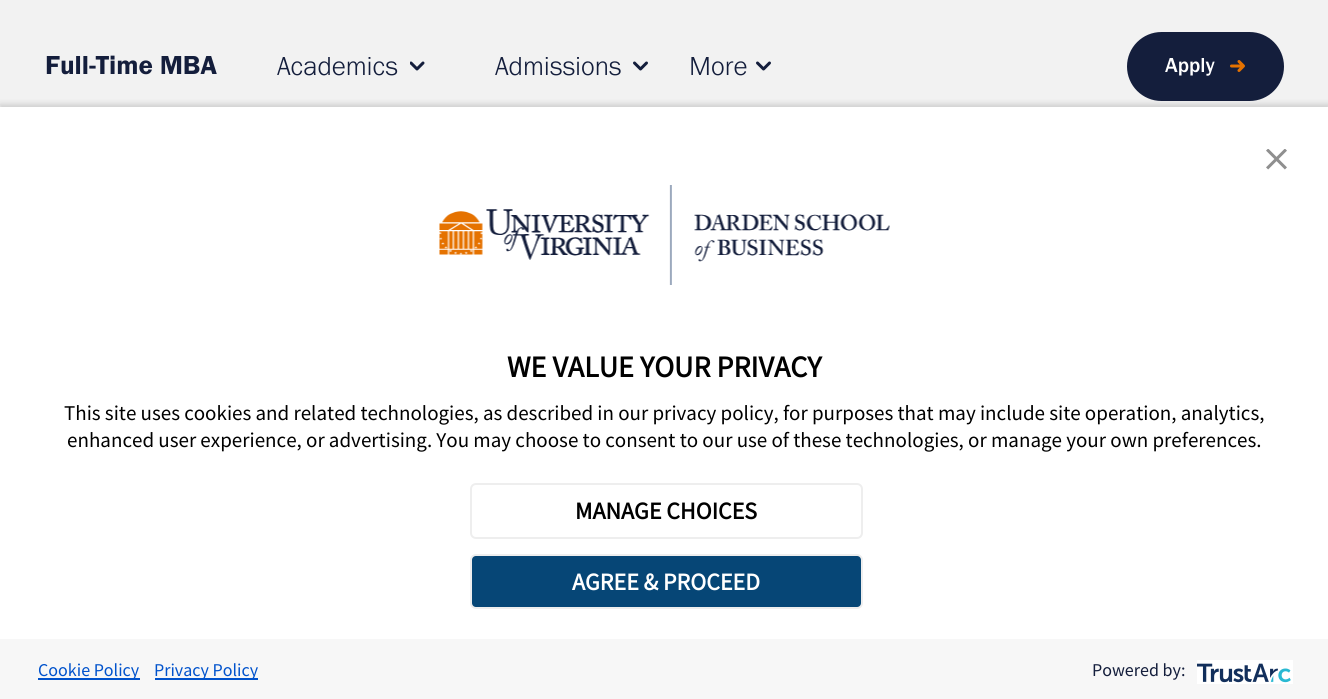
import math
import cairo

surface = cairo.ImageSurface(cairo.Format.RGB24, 1328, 699)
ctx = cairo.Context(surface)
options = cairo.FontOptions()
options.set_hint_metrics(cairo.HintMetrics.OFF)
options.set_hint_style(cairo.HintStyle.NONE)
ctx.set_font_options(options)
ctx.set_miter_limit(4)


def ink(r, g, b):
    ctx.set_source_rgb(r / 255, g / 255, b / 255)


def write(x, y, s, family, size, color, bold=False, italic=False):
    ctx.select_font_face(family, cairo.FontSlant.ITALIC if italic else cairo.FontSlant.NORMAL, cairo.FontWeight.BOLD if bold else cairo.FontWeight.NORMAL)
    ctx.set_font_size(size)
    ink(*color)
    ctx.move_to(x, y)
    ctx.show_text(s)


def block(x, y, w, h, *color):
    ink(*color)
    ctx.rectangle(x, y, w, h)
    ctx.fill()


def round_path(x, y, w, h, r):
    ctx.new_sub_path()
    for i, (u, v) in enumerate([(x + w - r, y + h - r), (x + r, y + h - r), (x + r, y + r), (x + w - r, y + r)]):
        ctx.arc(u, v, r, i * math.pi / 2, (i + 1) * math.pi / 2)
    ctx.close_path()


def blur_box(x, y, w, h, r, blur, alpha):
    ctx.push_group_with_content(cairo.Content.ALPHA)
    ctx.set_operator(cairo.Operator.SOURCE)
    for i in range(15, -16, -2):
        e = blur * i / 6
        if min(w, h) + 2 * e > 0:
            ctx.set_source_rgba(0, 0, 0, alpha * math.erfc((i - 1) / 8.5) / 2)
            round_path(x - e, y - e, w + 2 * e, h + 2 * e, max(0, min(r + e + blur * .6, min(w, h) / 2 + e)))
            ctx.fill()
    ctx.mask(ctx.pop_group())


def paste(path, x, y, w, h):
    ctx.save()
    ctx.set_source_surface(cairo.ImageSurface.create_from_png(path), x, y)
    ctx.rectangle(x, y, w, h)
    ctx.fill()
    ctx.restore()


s1 = dict(family="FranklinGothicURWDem", size=27, color=(20, 30, 60))
s2 = dict(family="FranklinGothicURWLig", size=27, color=(20, 30, 60))
s3 = dict(family="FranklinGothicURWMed", size=21, color=(255, 255, 255))
s4 = dict(family="Source Sans Pro", size=30, color=(0, 0, 0), bold=True)
s5 = dict(family="Source Sans Pro", size=21, color=(0, 0, 0))
s6 = dict(family="Source Sans Pro", size=24, color=(0, 0, 0), bold=True)
s7 = dict(family="Source Sans Pro", size=24, color=(255, 255, 255), bold=True)
s8 = dict(family="Source Sans Pro", size=18, color=(0, 82, 204))
s9 = dict(family="Source Sans Pro", size=18, color=(20, 30, 60))

ink(242, 242, 242)
ctx.paint()
write(45, 74, "Full-Time MBA", **s1)
write(277, 75, "Academics", **s2)
paste("pic1.png", 410, 61, 15, 10)
write(495, 75, "Admissions", **s2)
paste("pic2.png", 633, 61, 15, 10)
write(689, 75, "More", **s2)
paste("pic2.png", 756, 61, 15, 10)
round_path(1128, 33, 155, 67, 33.5)
ctx.fill_preserve()
ctx.stroke()
write(1165, 72, "Apply", **s3)
paste("pic3.png", 1230, 60, 15, 12)
ink(0, 0, 0)
blur_box(0, 104, 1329, 592, 0, 3, 0.15)
block(0, 107, 1328, 532, 255, 255, 255)
paste("pic4.png", 1266, 149, 21, 21)
paste("pic5.png", 439, 185, 451, 100)
write(507, 377, "WE VALUE YOUR PRIVACY", **s4)
write(64, 420, "This site uses cookies and related technologies, as described in our privacy policy, for purposes that may include site operation, analytics,", **s5)
write(67, 447, "enhanced user experience, or advertising. You may choose to consent to our use of these technologies, or manage your own preferences.", **s5)
round_path(471, 484, 391, 54, 5)
ink(238, 238, 238)
ctx.stroke()
write(575, 519, "MANAGE CHOICES", **s6)
ink(6, 70, 118)
round_path(471, 555, 391, 53, 5)
ctx.fill_preserve()
ink(238, 238, 238)
ctx.stroke()
write(572, 590, "AGREE & PROCEED", **s7)
block(0, 639, 1328, 60, 247, 247, 247)
block(38, 678, 102, 2, 0, 82, 204)
write(38, 676, "Cookie Policy", **s8)
block(155, 678, 103, 2, 0, 82, 204)
write(154, 676, "Privacy Policy", **s8)
write(1092, 676, "Powered by:", **s9)
paste("pic6.png", 1197, 660, 96, 24)
surface.write_to_png("screenshot.png")
